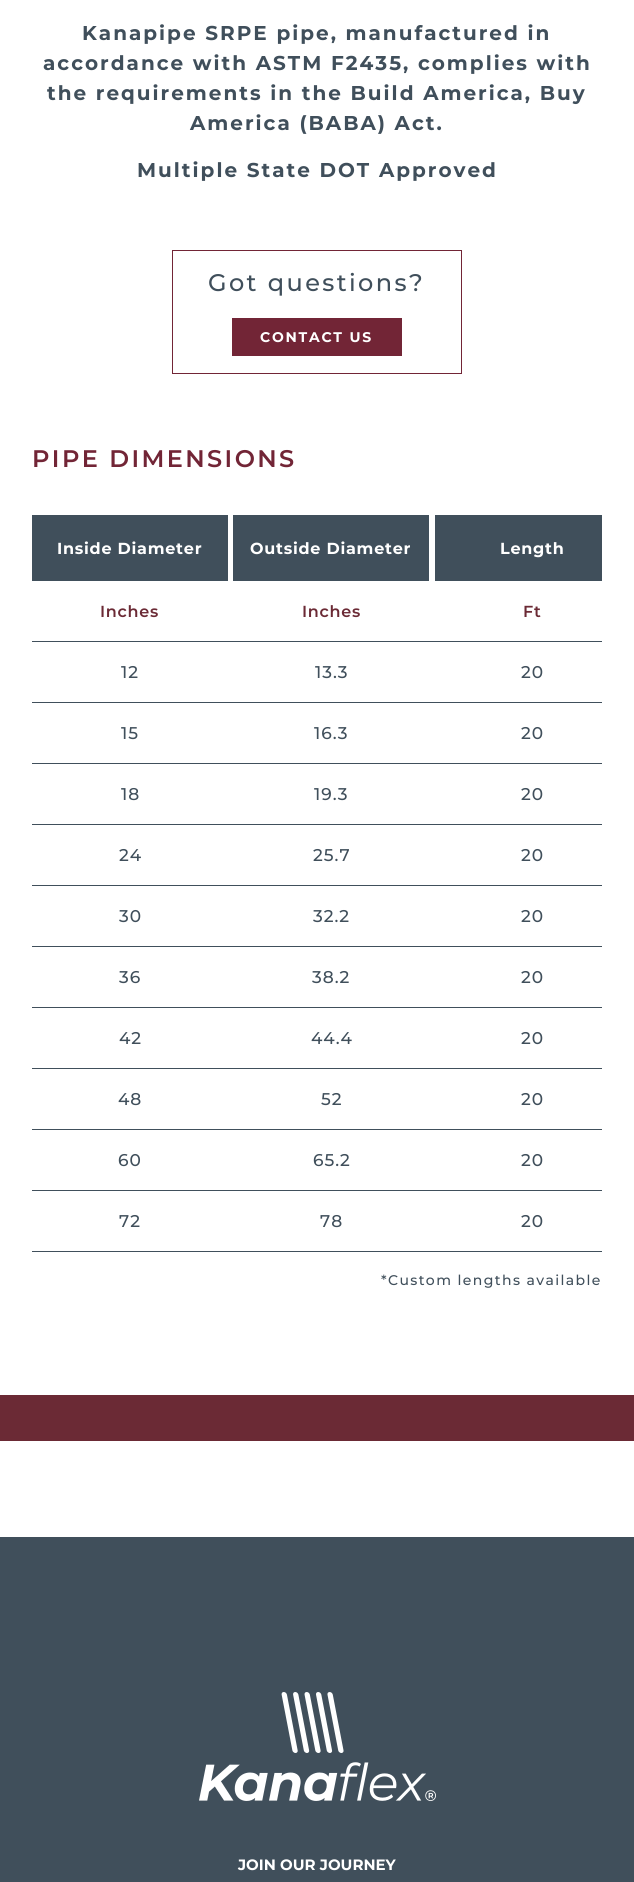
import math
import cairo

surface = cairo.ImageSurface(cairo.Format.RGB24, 634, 1882)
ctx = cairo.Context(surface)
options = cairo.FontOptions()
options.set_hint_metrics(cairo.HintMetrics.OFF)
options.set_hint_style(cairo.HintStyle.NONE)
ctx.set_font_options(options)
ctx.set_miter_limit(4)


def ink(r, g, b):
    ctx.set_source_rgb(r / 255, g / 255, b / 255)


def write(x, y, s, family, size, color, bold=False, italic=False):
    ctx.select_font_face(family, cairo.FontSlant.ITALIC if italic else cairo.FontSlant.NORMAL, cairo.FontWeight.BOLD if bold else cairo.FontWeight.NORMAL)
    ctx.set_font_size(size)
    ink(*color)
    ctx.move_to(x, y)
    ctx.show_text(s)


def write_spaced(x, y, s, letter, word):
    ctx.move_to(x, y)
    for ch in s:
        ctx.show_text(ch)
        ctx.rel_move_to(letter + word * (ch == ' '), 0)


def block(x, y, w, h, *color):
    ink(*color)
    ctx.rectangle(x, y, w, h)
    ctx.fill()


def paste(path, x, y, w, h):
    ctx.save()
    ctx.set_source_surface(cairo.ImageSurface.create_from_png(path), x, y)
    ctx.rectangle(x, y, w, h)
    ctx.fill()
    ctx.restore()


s1 = dict(family="Montserrat", size=15, color=(255, 255, 255), bold=True)

ink(255, 255, 255)
ctx.paint()
ctx.select_font_face("Montserrat", cairo.FontSlant.NORMAL, cairo.FontWeight.BOLD)
ctx.set_font_size(20)
ink(64, 79, 91)
write_spaced(82, 40, "Kanapipe SRPE pipe, manufactured in", 2, 0)
write_spaced(43, 70, "accordance with ASTM F2435, complies with", 2, 0)
write_spaced(47, 100, "the requirements in the Build America, Buy", 2, 0)
write_spaced(190, 130, "America (BABA) Act.", 2, 0)
write_spaced(137, 177, "Multiple State DOT Approved", 2, 0)
ctx.rectangle(172.5, 250.5, 289, 123)
ink(114, 37, 54)
ctx.set_line_width(1)
ctx.stroke()
ctx.select_font_face("Montserrat Medium")
ctx.set_font_size(24)
ink(64, 79, 91)
write_spaced(208, 291, "Got questions?", 2.4, 0)
block(232, 318, 170, 38, 114, 37, 54)
ctx.select_font_face("Montserrat", cairo.FontSlant.NORMAL, cairo.FontWeight.BOLD)
ctx.set_font_size(14)
ink(255, 255, 255)
write_spaced(260, 342, "CONTACT US", 1.75, 0)
ctx.select_font_face("Montserrat SemiBold")
ctx.set_font_size(24)
ink(114, 37, 54)
write_spaced(32, 467, "PIPE DIMENSIONS", 2.4, 0)
block(32, 515, 196, 66, 64, 79, 91)
ctx.select_font_face("Montserrat", cairo.FontSlant.NORMAL, cairo.FontWeight.BOLD)
ctx.set_font_size(16)
ink(255, 255, 255)
write_spaced(57, 554, "Inside Diameter", 0.75, 0)
block(233, 515, 196, 66, 64, 79, 91)
ink(255, 255, 255)
write_spaced(250, 554, "Outside Diameter", 0.75, 0)
block(435, 515, 167, 66, 64, 79, 91)
ink(255, 255, 255)
write_spaced(500, 554, "Length", 0.75, 0)
block(32, 641, 570, 1, 64, 79, 91)
ctx.select_font_face("Montserrat SemiBold")
ink(107, 42, 53)
write_spaced(100, 617, "Inches", 0.75, 0)
write_spaced(302, 617, "Inches", 0.75, 0)
write_spaced(523, 617, "Ft", 0.75, 0)
block(32, 702, 570, 1, 64, 79, 91)
ctx.select_font_face("Montserrat Medium")
ctx.set_font_size(17)
write_spaced(121, 678, "12", 1, 0)
write_spaced(315, 678, "13.3", 1, 0)
write_spaced(521, 678, "20", 1, 0)
block(32, 763, 570, 1, 64, 79, 91)
write_spaced(121, 739, "15", 1, 0)
write_spaced(314, 739, "16.3", 1, 0)
write_spaced(521, 739, "20", 1, 0)
block(32, 824, 570, 1, 64, 79, 91)
write_spaced(121, 800, "18", 1, 0)
write_spaced(314, 800, "19.3", 1, 0)
write_spaced(521, 800, "20", 1, 0)
block(32, 885, 570, 1, 64, 79, 91)
write_spaced(119, 861, "24", 1, 0)
write_spaced(313, 861, "25.7", 1, 0)
write_spaced(521, 861, "20", 1, 0)
block(32, 946, 570, 1, 64, 79, 91)
write_spaced(119, 922, "30", 1, 0)
write_spaced(313, 922, "32.2", 1, 0)
write_spaced(521, 922, "20", 1, 0)
block(32, 1007, 570, 1, 64, 79, 91)
write_spaced(119, 983, "36", 1, 0)
write_spaced(312, 983, "38.2", 1, 0)
write_spaced(521, 983, "20", 1, 0)
block(32, 1068, 570, 1, 64, 79, 91)
write_spaced(119, 1044, "42", 1, 0)
write_spaced(311, 1044, "44.4", 1, 0)
write_spaced(521, 1044, "20", 1, 0)
block(32, 1129, 570, 1, 64, 79, 91)
write_spaced(118, 1105, "48", 1, 0)
write_spaced(321, 1105, "52", 1, 0)
write_spaced(521, 1105, "20", 1, 0)
block(32, 1190, 570, 1, 64, 79, 91)
write_spaced(118, 1166, "60", 1, 0)
write_spaced(313, 1166, "65.2", 1, 0)
write_spaced(521, 1166, "20", 1, 0)
block(32, 1251, 570, 1, 64, 79, 91)
write_spaced(119, 1227, "72", 1, 0)
write_spaced(320, 1227, "78", 1, 0)
write_spaced(521, 1227, "20", 1, 0)
ctx.set_font_size(14)
write_spaced(381, 1285, "*Custom lengths available", 1.4, 0)
block(0, 1395, 634, 46, 107, 42, 53)
block(0, 1537, 634, 345, 64, 79, 91)
paste("pic1.png", 199, 1692, 237, 109)
write(238, 1870, "JOIN OUR JOURNEY", **s1)
surface.write_to_png("screenshot.png")
